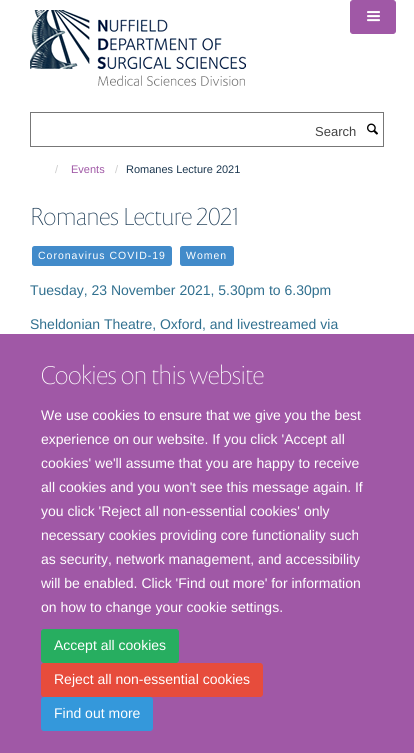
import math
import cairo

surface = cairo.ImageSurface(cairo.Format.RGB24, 414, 753)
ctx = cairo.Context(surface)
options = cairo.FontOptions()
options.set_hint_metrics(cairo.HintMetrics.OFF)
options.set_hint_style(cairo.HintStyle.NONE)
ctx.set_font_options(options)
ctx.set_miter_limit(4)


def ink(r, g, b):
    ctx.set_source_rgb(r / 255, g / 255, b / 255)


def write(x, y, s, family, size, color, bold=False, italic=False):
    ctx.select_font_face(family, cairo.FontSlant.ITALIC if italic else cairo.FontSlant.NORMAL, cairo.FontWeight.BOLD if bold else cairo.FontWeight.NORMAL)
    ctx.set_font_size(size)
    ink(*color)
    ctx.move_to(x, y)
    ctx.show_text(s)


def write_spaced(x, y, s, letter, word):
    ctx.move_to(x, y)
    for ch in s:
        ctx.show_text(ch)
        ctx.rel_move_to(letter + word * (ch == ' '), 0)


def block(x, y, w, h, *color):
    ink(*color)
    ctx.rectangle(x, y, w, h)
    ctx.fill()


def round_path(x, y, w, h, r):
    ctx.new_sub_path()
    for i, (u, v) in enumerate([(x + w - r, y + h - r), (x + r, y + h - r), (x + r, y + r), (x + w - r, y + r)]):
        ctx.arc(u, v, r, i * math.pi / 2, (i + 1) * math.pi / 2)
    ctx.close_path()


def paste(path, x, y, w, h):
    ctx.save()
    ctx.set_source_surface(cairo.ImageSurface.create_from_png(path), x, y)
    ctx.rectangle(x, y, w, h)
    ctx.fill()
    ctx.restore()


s1 = dict(family="Liberation Sans", size=13, color=(68, 68, 68))
s2 = dict(family="Liberation Sans", size=11, color=(204, 204, 204))
s3 = dict(family="Liberation Sans", size=11, color=(160, 88, 166))
s4 = dict(family="Liberation Sans", size=11, color=(29, 56, 80))
s5 = dict(family="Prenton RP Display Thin", size=25, color=(32, 62, 88))
s6 = dict(family="Liberation Sans", size=14, color=(49, 112, 143))
s7 = dict(family="Prenton RP Display Thin", size=26, color=(255, 255, 255))
s8 = dict(family="Liberation Sans", size=14, color=(255, 255, 255))

ink(255, 255, 255)
ctx.paint()
paste("pic1.png", 30, 10, 216, 76)
ink(160, 88, 166)
round_path(350.5, 0.5, 45, 33, 2.5)
ctx.fill_preserve()
ctx.set_line_width(1)
ctx.stroke()
paste("pic2.png", 367, 11, 13, 11)
ctx.rectangle(30.5, 112.5, 353, 34)
ink(119, 119, 119)
ctx.stroke()
write(315, 136, "Search", **s1)
paste("pic3.png", 367, 123, 11, 12)
write(55, 173, "/", **s2)
write(71, 173, "Events", **s3)
write(115, 173, "/", **s2)
write(126, 173, "Romanes Lecture 2021", **s4)
write(30, 225, "Romanes Lecture 2021", **s5)
ink(66, 139, 202)
round_path(32, 246, 140, 20, 2.5)
ctx.fill()
ctx.select_font_face("Liberation Sans")
ctx.set_font_size(10.5)
ink(255, 255, 255)
write_spaced(38, 259, "Coronavirus COVID-19", 1, 0)
ink(66, 139, 202)
round_path(180, 246, 54, 20, 2.5)
ctx.fill()
ink(255, 255, 255)
write_spaced(186, 259, "Women", 1, 0)
write(30, 295, "Tuesday, 23 November 2021, 5.30pm to 6.30pm", **s6)
write(30, 329, "Sheldonian Theatre, Oxford, and livestreamed via", **s6)
block(0, 334, 414, 419, 160, 88, 166)
write(41, 384, "Cookies on this website", **s7)
write(41, 420, "We use cookies to ensure that we give you the best", **s8)
write(41, 444, "experience on our website. If you click 'Accept all", **s8)
write(41, 468, "cookies' we'll assume that you are happy to receive", **s8)
write(41, 492, "all cookies and you won't see this message again. If", **s8)
write(41, 516, "you click 'Reject all non-essential cookies' only", **s8)
write(41, 540, "necessary cookies providing core functionality such", **s8)
write(41, 564, "as security, network management, and accessibility", **s8)
write(41, 588, "will be enabled. Click 'Find out more' for information", **s8)
write(41, 612, "on how to change your cookie settings.", **s8)
ink(39, 174, 96)
round_path(41.5, 629.5, 137, 33, 2.5)
ctx.fill_preserve()
ctx.stroke()
write(54, 650, "Accept all cookies", **s8)
ink(231, 76, 60)
round_path(41.5, 663.5, 221, 33, 2.5)
ctx.fill_preserve()
ctx.stroke()
write(54, 684, "Reject all non-essential cookies", **s8)
ink(52, 152, 219)
round_path(41.5, 697.5, 111, 33, 2.5)
ctx.fill_preserve()
ctx.stroke()
write(54, 718, "Find out more", **s8)
surface.write_to_png("screenshot.png")
